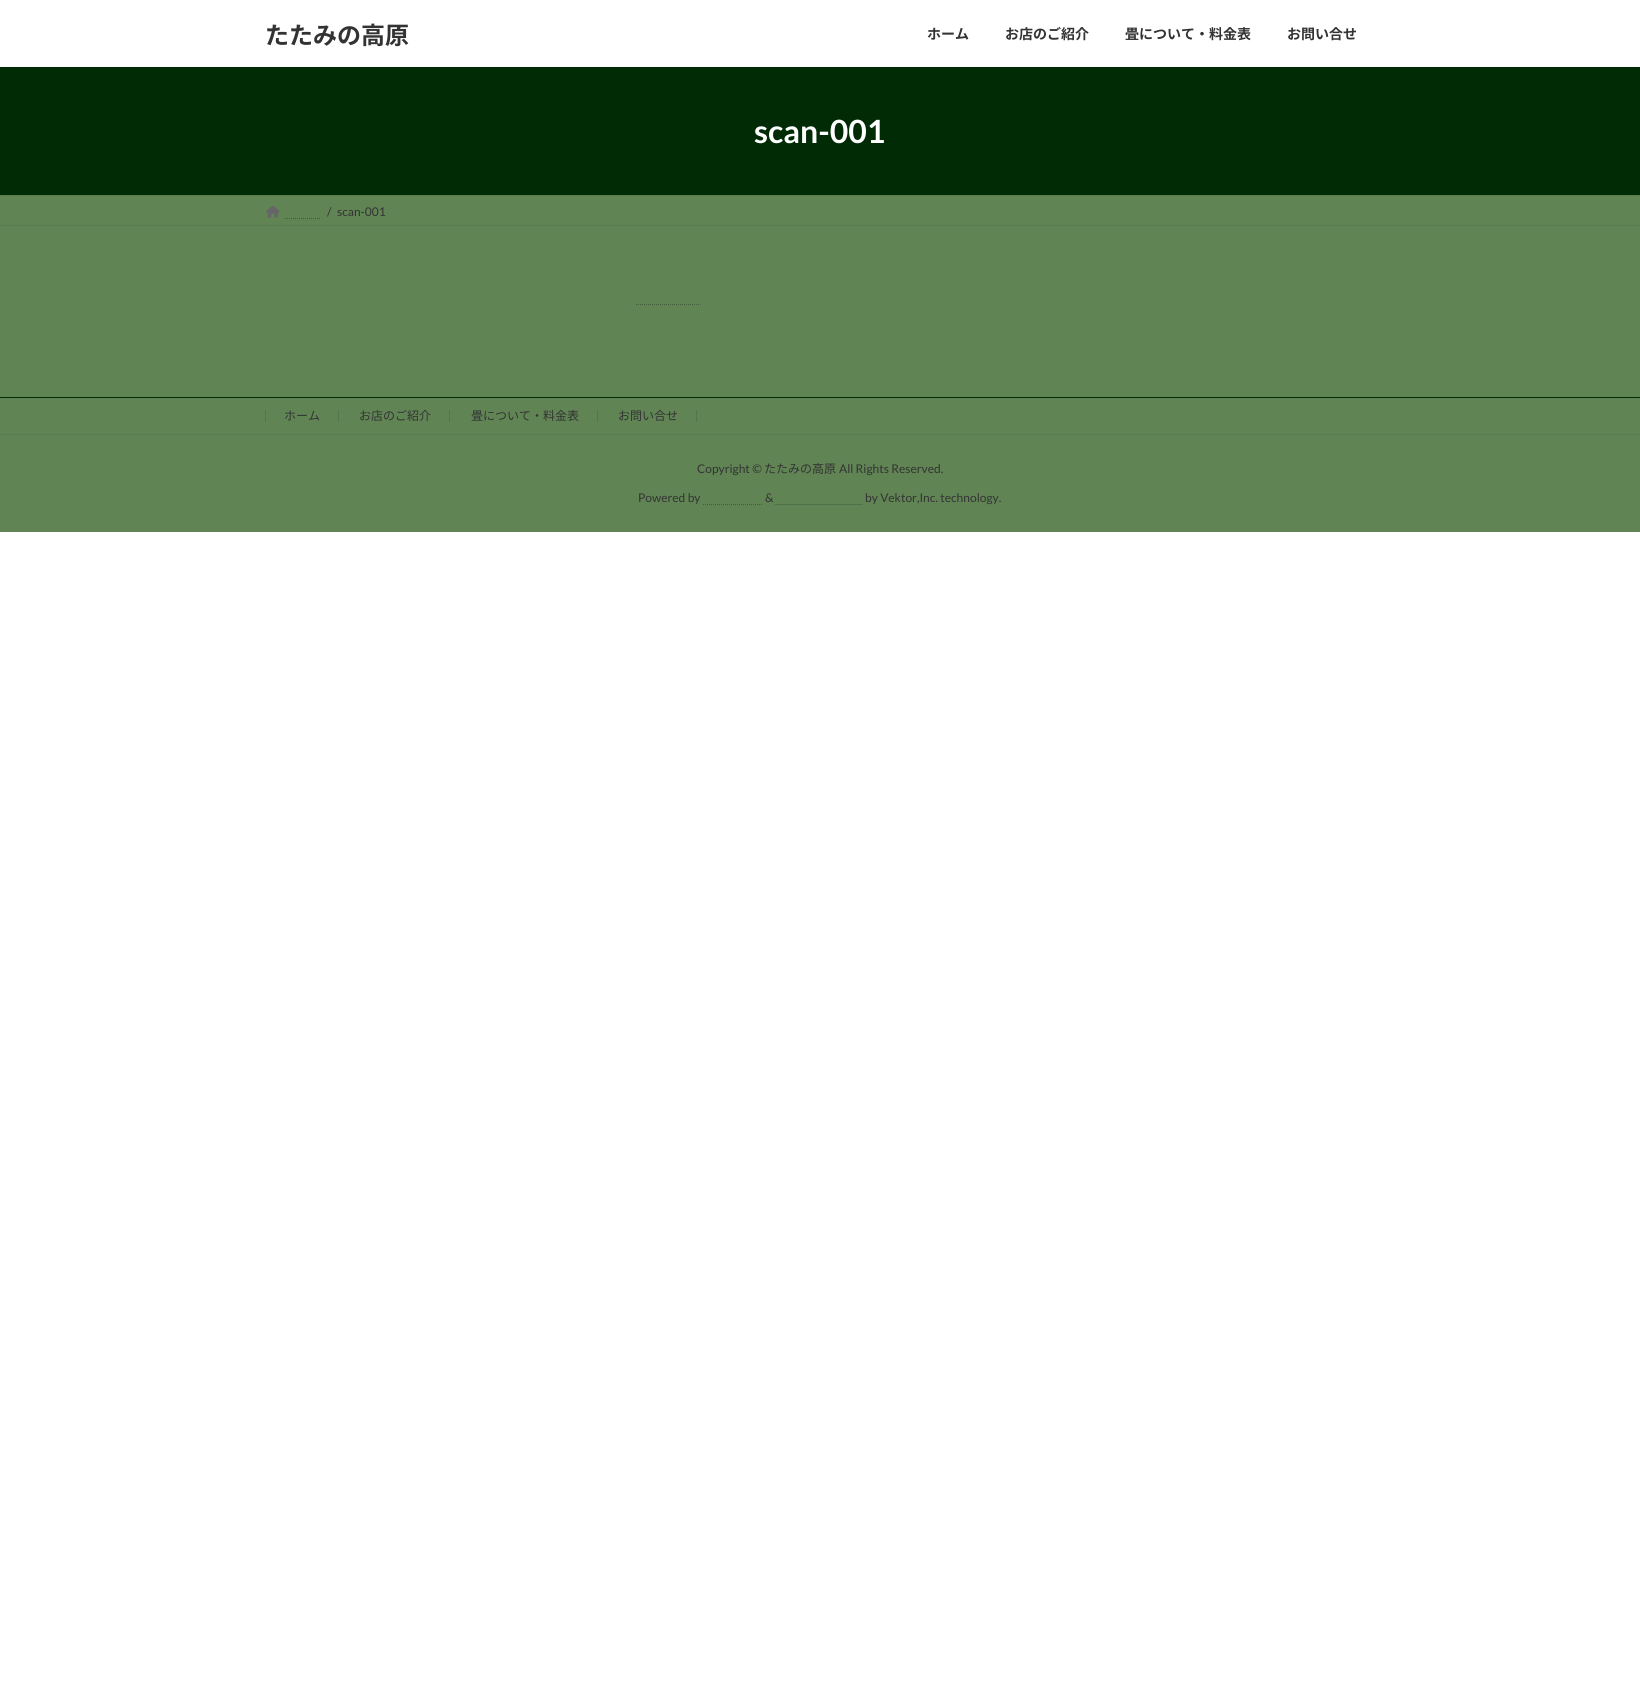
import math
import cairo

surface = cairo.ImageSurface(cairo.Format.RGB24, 1640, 1691)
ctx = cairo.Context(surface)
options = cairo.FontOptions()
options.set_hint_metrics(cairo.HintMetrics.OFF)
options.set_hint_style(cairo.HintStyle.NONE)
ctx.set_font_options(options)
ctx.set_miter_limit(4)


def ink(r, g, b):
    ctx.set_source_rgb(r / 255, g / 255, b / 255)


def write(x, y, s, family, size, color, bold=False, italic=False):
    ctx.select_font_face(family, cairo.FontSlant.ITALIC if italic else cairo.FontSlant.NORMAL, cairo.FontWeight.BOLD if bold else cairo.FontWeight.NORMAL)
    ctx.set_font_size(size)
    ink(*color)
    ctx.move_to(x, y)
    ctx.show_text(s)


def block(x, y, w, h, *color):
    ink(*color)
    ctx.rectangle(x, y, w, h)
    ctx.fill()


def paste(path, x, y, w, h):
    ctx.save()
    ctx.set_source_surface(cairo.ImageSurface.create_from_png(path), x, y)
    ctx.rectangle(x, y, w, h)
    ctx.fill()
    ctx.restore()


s1 = dict(family="Noto Sans JP", size=24, color=(51, 51, 51), bold=True)
s2 = dict(family="Noto Sans JP", size=14, color=(51, 51, 51), bold=True)
s3 = dict(family="Lato", size=32, color=(255, 255, 255), bold=True)
s4 = dict(family="Lato", size=12, color=(51, 51, 51))
s5 = dict(family="Noto Sans JP", size=12, color=(51, 51, 51))

ink(255, 255, 255)
ctx.paint()
block(0, 196, 1640, 336, 96, 132, 84)
write(265, 44, "たたみの高原", **s1)
write(927, 39, "ホーム", **s2)
write(1005, 39, "お店のご紹介", **s2)
write(1125, 39, "畳について・料金表", **s2)
write(1287, 39, "お問い合せ", **s2)
block(0, 67, 1640, 128, 0, 43, 5)
write(754, 143, "scan-001", **s3)
block(0, 195, 1640, 1, 90, 124, 79)
block(0, 225, 1640, 1, 90, 124, 79)
paste("pic1.png", 266, 205, 14, 13)
ctx.new_path()
ctx.move_to(285, 218.5)
ctx.line_to(321, 218.5)
ink(67, 92, 59)
ctx.set_line_width(1)
ctx.set_dash([1, 1])
ctx.stroke()
write(327, 216, "/", **s4)
write(337, 216, "scan-001", **s4)
ctx.new_path()
ctx.move_to(636, 304.5)
ctx.line_to(700.5, 304.5)
ink(67, 92, 59)
ctx.stroke()
block(0, 397, 1640, 1, 0, 43, 5)
block(0, 434, 1640, 1, 90, 124, 79)
block(338, 410, 1, 12, 84, 116, 74)
block(265, 410, 1, 12, 84, 116, 74)
write(284, 420, "ホーム", **s5)
block(449, 410, 1, 12, 84, 116, 74)
write(359, 420, "お店のご紹介", **s5)
block(597, 410, 1, 12, 84, 116, 74)
write(471, 420, "畳について・料金表", **s5)
block(696, 410, 1, 12, 84, 116, 74)
write(618, 420, "お問い合せ", **s5)
write(697, 473, "Copyright ©", **s4)
write(764, 473, "たたみの高原", **s5)
write(839, 473, "All Rights Reserved.", **s4)
write(638, 502, "Powered by", **s4)
ctx.new_path()
ctx.move_to(703, 504.5)
ctx.line_to(762.5, 504.5)
ink(67, 92, 59)
ctx.stroke()
write(765, 502, "&", **s4)
ctx.new_path()
ctx.move_to(775.5, 504.5)
ctx.line_to(863, 504.5)
ink(67, 92, 59)
ctx.stroke()
write(865, 502, "by Vektor,Inc. technology.", **s4)
surface.write_to_png("screenshot.png")
